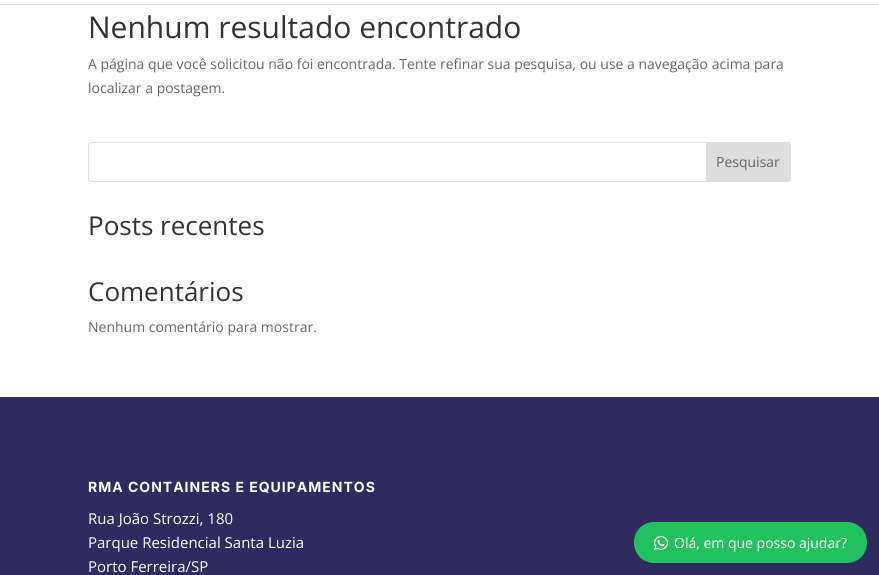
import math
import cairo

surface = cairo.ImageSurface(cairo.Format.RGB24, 879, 575)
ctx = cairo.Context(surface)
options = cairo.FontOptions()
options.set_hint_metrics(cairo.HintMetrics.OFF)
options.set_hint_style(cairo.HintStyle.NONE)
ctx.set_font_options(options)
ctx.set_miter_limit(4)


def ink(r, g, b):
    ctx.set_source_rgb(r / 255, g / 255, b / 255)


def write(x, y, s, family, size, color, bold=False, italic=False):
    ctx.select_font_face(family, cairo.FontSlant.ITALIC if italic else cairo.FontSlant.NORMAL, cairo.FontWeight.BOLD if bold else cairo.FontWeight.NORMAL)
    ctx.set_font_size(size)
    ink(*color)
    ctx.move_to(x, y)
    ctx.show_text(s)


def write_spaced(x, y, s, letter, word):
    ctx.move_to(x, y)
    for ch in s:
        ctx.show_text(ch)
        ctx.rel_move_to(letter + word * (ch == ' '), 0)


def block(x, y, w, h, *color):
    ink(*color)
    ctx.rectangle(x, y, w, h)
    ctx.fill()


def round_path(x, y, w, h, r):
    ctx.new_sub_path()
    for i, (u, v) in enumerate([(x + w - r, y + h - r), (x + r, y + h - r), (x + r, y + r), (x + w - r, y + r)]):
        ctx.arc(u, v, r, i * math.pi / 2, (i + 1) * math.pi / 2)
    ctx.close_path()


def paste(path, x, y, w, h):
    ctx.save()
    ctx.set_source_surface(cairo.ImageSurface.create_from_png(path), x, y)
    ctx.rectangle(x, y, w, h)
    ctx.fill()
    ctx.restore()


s1 = dict(family="Open Sans", size=30, color=(51, 51, 51))
s2 = dict(family="Open Sans", size=14, color=(102, 102, 102))
s3 = dict(family="Open Sans", size=26, color=(51, 51, 51))
s4 = dict(family="Open Sans", size=15, color=(255, 255, 255))
s5 = dict(family="Open Sans", size=14, color=(255, 255, 255))

ink(255, 255, 255)
ctx.paint()
block(0, 4, 879, 1, 230, 230, 230)
write(88, 38, "Nenhum resultado encontrado", **s1)
write(88, 69, "A página que você solicitou não foi encontrada. Tente refinar sua pesquisa, ou use a navegação acima para", **s2)
write(88, 93, "localizar a postagem.", **s2)
round_path(88.5, 142.5, 702, 39, 2.5)
ink(221, 221, 221)
ctx.set_line_width(1)
ctx.stroke()
ctx.new_path()
ctx.move_to(706.5, 142.5)
ctx.line_to(788, 142.5)
ctx.curve_to(789.5, 142.5, 790.5, 143.5, 790.5, 145)
ctx.line_to(790.5, 179)
ctx.curve_to(790.5, 180.5, 789.5, 181.5, 788, 181.5)
ctx.line_to(706.5, 181.5)
ctx.close_path()
ctx.fill_preserve()
ctx.stroke()
write(716, 167, "Pesquisar", **s2)
write(88, 235, "Posts recentes", **s3)
write(88, 301, "Comentários", **s3)
write(88, 332, "Nenhum comentário para mostrar.", **s2)
block(0, 397, 879, 178, 47, 43, 96)
ctx.select_font_face("Inter", cairo.FontSlant.NORMAL, cairo.FontWeight.BOLD)
ink(255, 255, 255)
write_spaced(88, 492, "RMA CONTAINERS E EQUIPAMENTOS", 1, 0)
write(88, 524, "Rua João Strozzi, 180", **s4)
write(88, 548, "Parque Residencial Santa Luzia", **s4)
write(88, 572, "Porto Ferreira/SP", **s4)
ink(34, 193, 94)
round_path(634, 522, 233, 41, 20)
ctx.fill()
paste("pic1.png", 654, 536, 14, 14)
write(674, 548, "Olá, em que posso ajudar?", **s5)
surface.write_to_png("screenshot.png")
